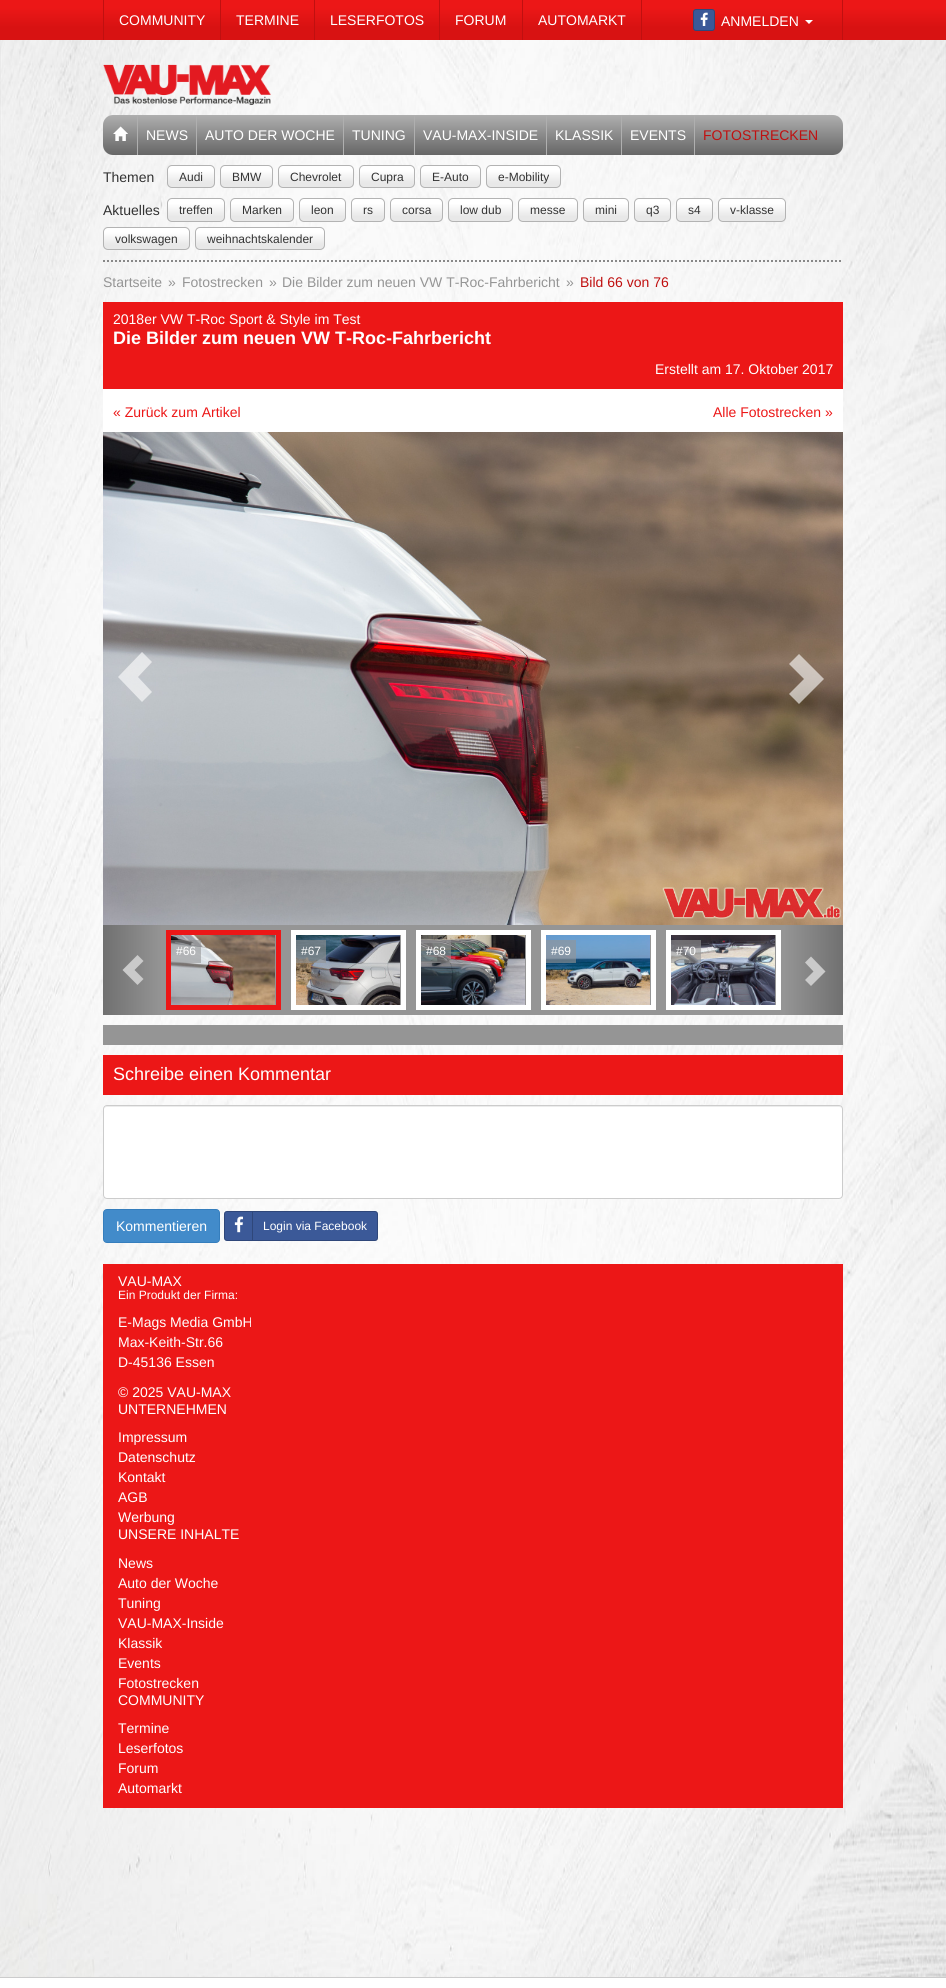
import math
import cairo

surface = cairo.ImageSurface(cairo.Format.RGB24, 946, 1988)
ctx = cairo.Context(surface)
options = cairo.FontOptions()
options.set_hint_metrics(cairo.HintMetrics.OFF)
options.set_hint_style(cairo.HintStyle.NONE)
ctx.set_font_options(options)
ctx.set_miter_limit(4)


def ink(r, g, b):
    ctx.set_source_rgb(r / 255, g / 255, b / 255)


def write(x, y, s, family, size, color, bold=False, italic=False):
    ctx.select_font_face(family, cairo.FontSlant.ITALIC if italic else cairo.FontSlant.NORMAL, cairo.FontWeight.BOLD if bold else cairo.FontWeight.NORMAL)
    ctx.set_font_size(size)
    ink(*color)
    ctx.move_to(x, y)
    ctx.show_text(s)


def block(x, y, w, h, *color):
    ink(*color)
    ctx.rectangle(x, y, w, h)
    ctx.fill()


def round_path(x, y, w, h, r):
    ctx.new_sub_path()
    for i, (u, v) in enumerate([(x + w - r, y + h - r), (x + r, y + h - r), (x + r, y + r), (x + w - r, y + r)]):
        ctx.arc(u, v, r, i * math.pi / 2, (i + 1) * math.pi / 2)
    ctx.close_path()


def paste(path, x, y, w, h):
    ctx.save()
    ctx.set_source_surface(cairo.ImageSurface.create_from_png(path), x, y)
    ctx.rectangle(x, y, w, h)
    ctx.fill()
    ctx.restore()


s1 = dict(family="Liberation Sans", size=14, color=(255, 255, 255))
s2 = dict(family="Liberation Sans", size=14, color=(192, 16, 16))
s3 = dict(family="Liberation Sans", size=14, color=(51, 51, 51))
s4 = dict(family="Liberation Sans", size=12, color=(51, 51, 51))
s5 = dict(family="Liberation Sans", size=14, color=(149, 149, 149))
s6 = dict(family="Liberation Sans", size=18, color=(255, 255, 255), bold=True)
s7 = dict(family="Liberation Sans", size=14, color=(236, 23, 23))
s8 = dict(family="Liberation Sans", size=12, color=(255, 255, 255))
s9 = dict(family="Liberation Sans", size=18, color=(255, 255, 255))

ink(255, 255, 255)
ctx.paint()
paste("pic1.png", 0, 40, 946, 1937)
gradient = cairo.LinearGradient(473, 0, 473, 40)
gradient.add_color_stop_rgba(0.2, 0.925, 0.09, 0.09, 1)
gradient.add_color_stop_rgba(0.7, 0.847, 0.071, 0.071, 1)
ctx.set_source(gradient)
ctx.rectangle(0, 0, 946, 40)
ctx.fill()
block(641, 0, 1, 40, 192, 16, 16)
block(103, 0, 1, 40, 192, 16, 16)
write(119, 25, "COMMUNITY", **s1)
block(220, 0, 1, 40, 192, 16, 16)
write(236, 25, "TERMINE", **s1)
block(314, 0, 1, 40, 192, 16, 16)
write(330, 25, "LESERFOTOS", **s1)
block(439, 0, 1, 40, 192, 16, 16)
write(455, 25, "FORUM", **s1)
block(522, 0, 1, 40, 192, 16, 16)
write(538, 25, "AUTOMARKT", **s1)
block(842, 0, 1, 40, 192, 16, 16)
ink(59, 89, 152)
round_path(693, 9, 22, 22, 3)
ctx.fill()
round_path(693.5, 9.5, 21, 21, 2.5)
ctx.set_source_rgba(0, 0, 0, 0.2)
ctx.set_line_width(1)
ctx.stroke()
paste("pic2.png", 700, 12, 8, 14)
write(721, 26, "ANMELDEN", **s1)
ctx.new_path()
ctx.move_to(805, 20)
ctx.line_to(813, 20)
ctx.line_to(809, 24)
ctx.close_path()
ctx.fill()
paste("pic3.png", 103, 64, 168, 41)
gradient = cairo.LinearGradient(473, 115, 473, 155)
gradient.add_color_stop_rgba(0, 0.686, 0.686, 0.686, 1)
gradient.add_color_stop_rgba(1, 0.4, 0.4, 0.4, 1)
ctx.set_source(gradient)
round_path(103, 115, 740, 40, 10)
ctx.fill()
block(137, 115, 1, 40, 175, 175, 175)
paste("pic4.png", 113, 126, 15, 15)
block(196, 115, 1, 40, 175, 175, 175)
write(146, 140, "NEWS", **s1)
block(343, 115, 1, 40, 175, 175, 175)
write(205, 140, "AUTO DER WOCHE", **s1)
block(414, 115, 1, 40, 175, 175, 175)
write(352, 140, "TUNING", **s1)
block(546, 115, 1, 40, 175, 175, 175)
write(423, 140, "VAU-MAX-INSIDE", **s1)
block(621, 115, 1, 40, 175, 175, 175)
write(555, 140, "KLASSIK", **s1)
block(694, 115, 1, 40, 175, 175, 175)
write(630, 140, "EVENTS", **s1)
write(703, 140, "FOTOSTRECKEN", **s2)
write(103, 182, "Themen", **s3)
ctx.save()
round_path(167, 165, 48, 23, 5)
ctx.clip()
gradient = cairo.LinearGradient(191, 166, 191, 187)
gradient.add_color_stop_rgba(0.2, 1, 1, 1, 1)
gradient.add_color_stop_rgba(0.8, 0.91, 0.91, 0.91, 1)
ctx.set_source(gradient)
ctx.rectangle(167, 166, 48, 21)
ctx.fill()
ctx.restore()
round_path(167.5, 165.5, 47, 22, 4.5)
ink(179, 179, 179)
ctx.stroke()
write(179, 181, "Audi", **s4)
ctx.save()
round_path(220, 165, 53, 23, 5)
ctx.clip()
gradient = cairo.LinearGradient(247, 166, 247, 187)
gradient.add_color_stop_rgba(0.2, 1, 1, 1, 1)
gradient.add_color_stop_rgba(0.8, 0.91, 0.91, 0.91, 1)
ctx.set_source(gradient)
ctx.rectangle(220, 166, 53, 21)
ctx.fill()
ctx.restore()
round_path(220.5, 165.5, 52, 22, 4.5)
ink(179, 179, 179)
ctx.stroke()
write(232, 181, "BMW", **s4)
ctx.save()
round_path(278, 165, 76, 23, 5)
ctx.clip()
gradient = cairo.LinearGradient(316, 166, 316, 187)
gradient.add_color_stop_rgba(0.2, 1, 1, 1, 1)
gradient.add_color_stop_rgba(0.8, 0.91, 0.91, 0.91, 1)
ctx.set_source(gradient)
ctx.rectangle(278, 166, 76, 21)
ctx.fill()
ctx.restore()
round_path(278.5, 165.5, 75, 22, 4.5)
ink(179, 179, 179)
ctx.stroke()
write(290, 181, "Chevrolet", **s4)
ctx.save()
round_path(359, 165, 56, 23, 5)
ctx.clip()
gradient = cairo.LinearGradient(387, 166, 387, 187)
gradient.add_color_stop_rgba(0.2, 1, 1, 1, 1)
gradient.add_color_stop_rgba(0.8, 0.91, 0.91, 0.91, 1)
ctx.set_source(gradient)
ctx.rectangle(359, 166, 56, 21)
ctx.fill()
ctx.restore()
round_path(359.5, 165.5, 55, 22, 4.5)
ink(179, 179, 179)
ctx.stroke()
write(371, 181, "Cupra", **s4)
ctx.save()
round_path(420, 165, 61, 23, 5)
ctx.clip()
gradient = cairo.LinearGradient(451, 166, 451, 187)
gradient.add_color_stop_rgba(0.2, 1, 1, 1, 1)
gradient.add_color_stop_rgba(0.8, 0.91, 0.91, 0.91, 1)
ctx.set_source(gradient)
ctx.rectangle(420, 166, 61, 21)
ctx.fill()
ctx.restore()
round_path(420.5, 165.5, 60, 22, 4.5)
ink(179, 179, 179)
ctx.stroke()
write(432, 181, "E-Auto", **s4)
ctx.save()
round_path(486, 165, 75, 23, 5)
ctx.clip()
gradient = cairo.LinearGradient(524, 166, 524, 187)
gradient.add_color_stop_rgba(0.2, 1, 1, 1, 1)
gradient.add_color_stop_rgba(0.8, 0.91, 0.91, 0.91, 1)
ctx.set_source(gradient)
ctx.rectangle(486, 166, 75, 21)
ctx.fill()
ctx.restore()
round_path(486.5, 165.5, 74, 22, 4.5)
ink(179, 179, 179)
ctx.stroke()
write(498, 181, "e-Mobility", **s4)
write(103, 215, "Aktuelles", **s3)
ctx.save()
round_path(167, 198, 58, 24, 5)
ctx.clip()
gradient = cairo.LinearGradient(196, 199, 196, 221)
gradient.add_color_stop_rgba(0.2, 1, 1, 1, 1)
gradient.add_color_stop_rgba(0.8, 0.91, 0.91, 0.91, 1)
ctx.set_source(gradient)
ctx.rectangle(167, 199, 58, 22)
ctx.fill()
ctx.restore()
round_path(167.5, 198.5, 57, 23, 4.5)
ink(179, 179, 179)
ctx.stroke()
write(179, 214, "treffen", **s4)
ctx.save()
round_path(230, 198, 64, 24, 5)
ctx.clip()
gradient = cairo.LinearGradient(262, 199, 262, 221)
gradient.add_color_stop_rgba(0.2, 1, 1, 1, 1)
gradient.add_color_stop_rgba(0.8, 0.91, 0.91, 0.91, 1)
ctx.set_source(gradient)
ctx.rectangle(230, 199, 64, 22)
ctx.fill()
ctx.restore()
round_path(230.5, 198.5, 63, 23, 4.5)
ink(179, 179, 179)
ctx.stroke()
write(242, 214, "Marken", **s4)
ctx.save()
round_path(299, 198, 47, 24, 5)
ctx.clip()
gradient = cairo.LinearGradient(323, 199, 323, 221)
gradient.add_color_stop_rgba(0.2, 1, 1, 1, 1)
gradient.add_color_stop_rgba(0.8, 0.91, 0.91, 0.91, 1)
ctx.set_source(gradient)
ctx.rectangle(299, 199, 47, 22)
ctx.fill()
ctx.restore()
round_path(299.5, 198.5, 46, 23, 4.5)
ink(179, 179, 179)
ctx.stroke()
write(311, 214, "leon", **s4)
ctx.save()
round_path(351, 198, 34, 24, 5)
ctx.clip()
gradient = cairo.LinearGradient(368, 199, 368, 221)
gradient.add_color_stop_rgba(0.2, 1, 1, 1, 1)
gradient.add_color_stop_rgba(0.8, 0.91, 0.91, 0.91, 1)
ctx.set_source(gradient)
ctx.rectangle(351, 199, 34, 22)
ctx.fill()
ctx.restore()
round_path(351.5, 198.5, 33, 23, 4.5)
ink(179, 179, 179)
ctx.stroke()
write(363, 214, "rs", **s4)
ctx.save()
round_path(390, 198, 53, 24, 5)
ctx.clip()
gradient = cairo.LinearGradient(417, 199, 417, 221)
gradient.add_color_stop_rgba(0.2, 1, 1, 1, 1)
gradient.add_color_stop_rgba(0.8, 0.91, 0.91, 0.91, 1)
ctx.set_source(gradient)
ctx.rectangle(390, 199, 53, 22)
ctx.fill()
ctx.restore()
round_path(390.5, 198.5, 52, 23, 4.5)
ink(179, 179, 179)
ctx.stroke()
write(402, 214, "corsa", **s4)
ctx.save()
round_path(448, 198, 65, 24, 5)
ctx.clip()
gradient = cairo.LinearGradient(481, 199, 481, 221)
gradient.add_color_stop_rgba(0.2, 1, 1, 1, 1)
gradient.add_color_stop_rgba(0.8, 0.91, 0.91, 0.91, 1)
ctx.set_source(gradient)
ctx.rectangle(448, 199, 65, 22)
ctx.fill()
ctx.restore()
round_path(448.5, 198.5, 64, 23, 4.5)
ink(179, 179, 179)
ctx.stroke()
write(460, 214, "low dub", **s4)
ctx.save()
round_path(518, 198, 60, 24, 5)
ctx.clip()
gradient = cairo.LinearGradient(548, 199, 548, 221)
gradient.add_color_stop_rgba(0.2, 1, 1, 1, 1)
gradient.add_color_stop_rgba(0.8, 0.91, 0.91, 0.91, 1)
ctx.set_source(gradient)
ctx.rectangle(518, 199, 60, 22)
ctx.fill()
ctx.restore()
round_path(518.5, 198.5, 59, 23, 4.5)
ink(179, 179, 179)
ctx.stroke()
write(530, 214, "messe", **s4)
ctx.save()
round_path(583, 198, 46, 24, 5)
ctx.clip()
gradient = cairo.LinearGradient(606, 199, 606, 221)
gradient.add_color_stop_rgba(0.2, 1, 1, 1, 1)
gradient.add_color_stop_rgba(0.8, 0.91, 0.91, 0.91, 1)
ctx.set_source(gradient)
ctx.rectangle(583, 199, 46, 22)
ctx.fill()
ctx.restore()
round_path(583.5, 198.5, 45, 23, 4.5)
ink(179, 179, 179)
ctx.stroke()
write(595, 214, "mini", **s4)
ctx.save()
round_path(634, 198, 37, 24, 5)
ctx.clip()
gradient = cairo.LinearGradient(653, 199, 653, 221)
gradient.add_color_stop_rgba(0.2, 1, 1, 1, 1)
gradient.add_color_stop_rgba(0.8, 0.91, 0.91, 0.91, 1)
ctx.set_source(gradient)
ctx.rectangle(634, 199, 37, 22)
ctx.fill()
ctx.restore()
round_path(634.5, 198.5, 36, 23, 4.5)
ink(179, 179, 179)
ctx.stroke()
write(646, 214, "q3", **s4)
ctx.save()
round_path(676, 198, 37, 24, 5)
ctx.clip()
gradient = cairo.LinearGradient(695, 199, 695, 221)
gradient.add_color_stop_rgba(0.2, 1, 1, 1, 1)
gradient.add_color_stop_rgba(0.8, 0.91, 0.91, 0.91, 1)
ctx.set_source(gradient)
ctx.rectangle(676, 199, 37, 22)
ctx.fill()
ctx.restore()
round_path(676.5, 198.5, 36, 23, 4.5)
ink(179, 179, 179)
ctx.stroke()
write(688, 214, "s4", **s4)
ctx.save()
round_path(718, 198, 68, 24, 5)
ctx.clip()
gradient = cairo.LinearGradient(752, 199, 752, 221)
gradient.add_color_stop_rgba(0.2, 1, 1, 1, 1)
gradient.add_color_stop_rgba(0.8, 0.91, 0.91, 0.91, 1)
ctx.set_source(gradient)
ctx.rectangle(718, 199, 68, 22)
ctx.fill()
ctx.restore()
round_path(718.5, 198.5, 67, 23, 4.5)
ink(179, 179, 179)
ctx.stroke()
write(730, 214, "v-klasse", **s4)
ctx.save()
round_path(103, 227, 87, 23, 5)
ctx.clip()
gradient = cairo.LinearGradient(147, 228, 147, 249)
gradient.add_color_stop_rgba(0.2, 1, 1, 1, 1)
gradient.add_color_stop_rgba(0.8, 0.91, 0.91, 0.91, 1)
ctx.set_source(gradient)
ctx.rectangle(103, 228, 87, 21)
ctx.fill()
ctx.restore()
round_path(103.5, 227.5, 86, 22, 4.5)
ink(179, 179, 179)
ctx.stroke()
write(115, 243, "volkswagen", **s4)
ctx.save()
round_path(195, 227, 130, 23, 5)
ctx.clip()
gradient = cairo.LinearGradient(260, 228, 260, 249)
gradient.add_color_stop_rgba(0.2, 1, 1, 1, 1)
gradient.add_color_stop_rgba(0.8, 0.91, 0.91, 0.91, 1)
ctx.set_source(gradient)
ctx.rectangle(195, 228, 130, 21)
ctx.fill()
ctx.restore()
round_path(195.5, 227.5, 129, 22, 4.5)
ink(179, 179, 179)
ctx.stroke()
write(207, 243, "weihnachtskalender", **s4)
ctx.new_path()
ctx.move_to(103, 261)
ctx.line_to(843, 261)
ink(136, 136, 136)
ctx.set_line_width(2)
ctx.set_dash([2, 2])
ctx.stroke()
write(103, 287, "Startseite", **s5)
write(168, 287, "»", **s5)
write(182, 287, "Fotostrecken", **s5)
write(269, 287, "»", **s5)
write(282, 287, "Die Bilder zum neuen VW T-Roc-Fahrbericht", **s5)
write(566, 287, "»", **s5)
write(580, 287, "Bild 66 von 76", **s2)
block(103, 302, 740, 87, 236, 23, 23)
block(103, 389, 740, 43, 255, 255, 255)
write(113, 324, "2018er VW T-Roc Sport & Style im Test", **s1)
write(113, 344, "Die Bilder zum neuen VW T-Roc-Fahrbericht", **s6)
write(655, 374, "Erstellt am 17. Oktober 2017", **s1)
write(113, 417, "« Zurück zum Artikel", **s7)
write(713, 417, "Alle Fotostrecken »", **s7)
paste("pic5.png", 103, 432, 740, 493)
ctx.set_source_rgba(1, 1, 1, 0.6)
ctx.new_path()
ctx.move_to(118, 677)
ctx.line_to(142, 702)
ctx.line_to(152, 692)
ctx.line_to(138, 677)
ctx.line_to(152, 662)
ctx.line_to(142, 652)
ctx.close_path()
ctx.fill()
ctx.new_path()
ctx.move_to(789, 694)
ctx.line_to(804, 679)
ctx.line_to(789, 664)
ctx.line_to(799, 654)
ctx.line_to(824, 679)
ctx.line_to(799, 704)
ctx.close_path()
ctx.fill()
block(162, 925, 622, 90, 149, 149, 149)
gradient = cairo.LinearGradient(103, 970, 162, 970)
gradient.add_color_stop_rgba(0, 0.439, 0.439, 0.439, 1)
gradient.add_color_stop_rgba(1, 0.584, 0.584, 0.584, 1)
ctx.set_source(gradient)
ctx.rectangle(103, 925, 59, 90)
ctx.fill()
ink(202, 202, 202)
ctx.new_path()
ctx.move_to(122.5, 970)
ctx.line_to(137.5, 985)
ctx.line_to(143.5, 979)
ctx.line_to(134.5, 970)
ctx.line_to(143.5, 961)
ctx.line_to(137.5, 955)
ctx.close_path()
ctx.fill()
ctx.rectangle(168.5, 932.5, 110, 75)
ink(236, 23, 23)
ctx.set_line_width(5)
ctx.set_dash([])
ctx.stroke()
paste("pic6.png", 171, 935, 104, 70)
ctx.set_source_rgba(0.584, 0.584, 0.584, 0.6)
ctx.rectangle(171, 940, 30, 23)
ctx.fill()
write(176, 955, "#66", **s8)
ctx.rectangle(293.5, 932.5, 110, 75)
ctx.stroke()
paste("pic7.png", 296, 935, 104, 70)
ctx.set_source_rgba(0.584, 0.584, 0.584, 0.6)
ctx.rectangle(296, 940, 30, 23)
ctx.fill()
write(301, 955, "#67", **s8)
ctx.rectangle(418.5, 932.5, 110, 75)
ctx.stroke()
paste("pic8.png", 421, 935, 104, 70)
ctx.set_source_rgba(0.584, 0.584, 0.584, 0.6)
ctx.rectangle(421, 940, 30, 23)
ctx.fill()
write(426, 955, "#68", **s8)
ctx.rectangle(543.5, 932.5, 110, 75)
ctx.stroke()
paste("pic9.png", 546, 935, 104, 70)
ctx.set_source_rgba(0.584, 0.584, 0.584, 0.6)
ctx.rectangle(546, 940, 30, 23)
ctx.fill()
write(551, 955, "#69", **s8)
ctx.rectangle(668.5, 932.5, 110, 75)
ctx.stroke()
paste("pic10.png", 671, 935, 104, 70)
ctx.set_source_rgba(0.584, 0.584, 0.584, 0.6)
ctx.rectangle(671, 940, 30, 23)
ctx.fill()
write(676, 955, "#70", **s8)
gradient = cairo.LinearGradient(784, 970, 843, 970)
gradient.add_color_stop_rgba(0, 0.584, 0.584, 0.584, 1)
gradient.add_color_stop_rgba(1, 0.439, 0.439, 0.439, 1)
ctx.set_source(gradient)
ctx.rectangle(784, 925, 59, 90)
ctx.fill()
ink(202, 202, 202)
ctx.new_path()
ctx.move_to(805, 980)
ctx.line_to(813.5, 971.5)
ctx.line_to(805, 962.5)
ctx.line_to(811, 956.5)
ctx.line_to(825.5, 971.5)
ctx.line_to(811, 986)
ctx.close_path()
ctx.fill()
block(103, 1025, 740, 20, 149, 149, 149)
block(103, 1055, 740, 40, 236, 23, 23)
write(113, 1080, "Schreibe einen Kommentar", **s9)
round_path(103, 1105, 740, 94, 4)
ctx.fill()
ink(236, 236, 236)
ctx.new_path()
ctx.move_to(107, 1107)
ctx.line_to(839, 1107)
ctx.curve_to(841, 1107, 842, 1108, 842, 1110)
ctx.curve_to(842, 1108, 841, 1106, 839, 1106)
ctx.line_to(107, 1106)
ctx.curve_to(105, 1106, 104, 1108, 104, 1110)
ctx.curve_to(104, 1108, 105, 1107, 107, 1107)
ctx.close_path()
ctx.fill()
round_path(103.5, 1105.5, 739, 93, 3.5)
ink(204, 204, 204)
ctx.set_line_width(1)
ctx.stroke()
ink(66, 139, 202)
round_path(103.5, 1209.5, 116, 33, 3.5)
ctx.fill_preserve()
ink(53, 126, 189)
ctx.stroke()
write(116, 1231, "Kommentieren", **s1)
ink(59, 89, 152)
round_path(224, 1211, 154, 30, 3)
ctx.fill()
round_path(224.5, 1211.5, 153, 29, 2.5)
ctx.set_source_rgba(0, 0, 0, 0.2)
ctx.stroke()
block(252, 1212, 1, 28, 47, 71, 122)
paste("pic11.png", 234, 1216, 9, 17)
write(263, 1230, "Login via Facebook", **s8)
block(103, 1264, 740, 544, 236, 23, 23)
write(118, 1286, "VAU-MAX", **s1)
write(118, 1299, "Ein Produkt der Firma:", **s8)
write(118, 1327, "E-Mags Media GmbH", **s1)
write(118, 1347, "Max-Keith-Str.66", **s1)
write(118, 1367, "D-45136 Essen", **s1)
write(118, 1397, "© 2025 VAU-MAX", **s1)
write(118, 1414, "UNTERNEHMEN", **s1)
write(118, 1442, "Impressum", **s1)
write(118, 1462, "Datenschutz", **s1)
write(118, 1482, "Kontakt", **s1)
write(118, 1502, "AGB", **s1)
write(118, 1522, "Werbung", **s1)
write(118, 1539, "UNSERE INHALTE", **s1)
write(118, 1568, "News", **s1)
write(118, 1588, "Auto der Woche", **s1)
write(118, 1608, "Tuning", **s1)
write(118, 1628, "VAU-MAX-Inside", **s1)
write(118, 1648, "Klassik", **s1)
write(118, 1668, "Events", **s1)
write(118, 1688, "Fotostrecken", **s1)
write(118, 1705, "COMMUNITY", **s1)
write(118, 1733, "Termine", **s1)
write(118, 1753, "Leserfotos", **s1)
write(118, 1773, "Forum", **s1)
write(118, 1793, "Automarkt", **s1)
block(0, 1977, 946, 1, 204, 204, 204)
surface.write_to_png("screenshot.png")
